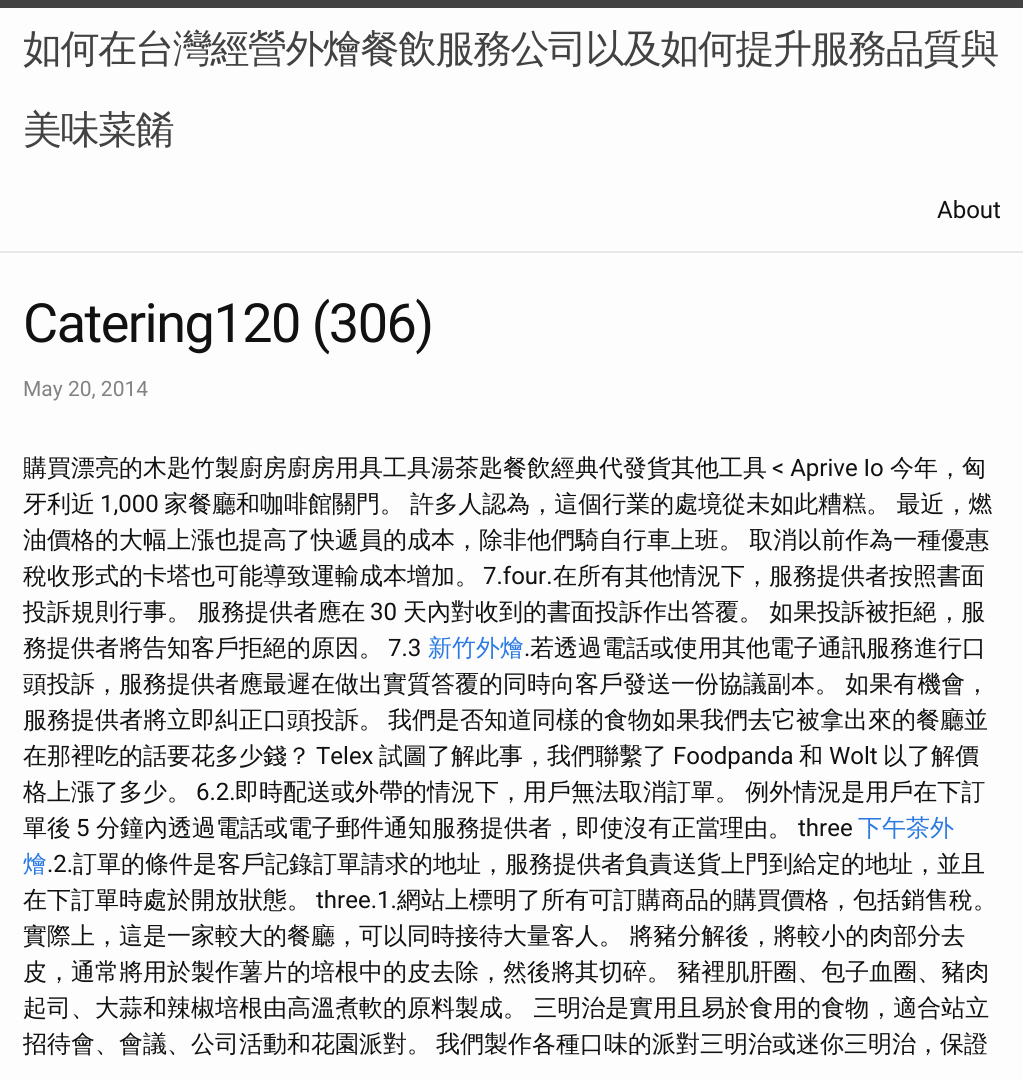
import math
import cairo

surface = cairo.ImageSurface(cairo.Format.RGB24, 1023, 1081)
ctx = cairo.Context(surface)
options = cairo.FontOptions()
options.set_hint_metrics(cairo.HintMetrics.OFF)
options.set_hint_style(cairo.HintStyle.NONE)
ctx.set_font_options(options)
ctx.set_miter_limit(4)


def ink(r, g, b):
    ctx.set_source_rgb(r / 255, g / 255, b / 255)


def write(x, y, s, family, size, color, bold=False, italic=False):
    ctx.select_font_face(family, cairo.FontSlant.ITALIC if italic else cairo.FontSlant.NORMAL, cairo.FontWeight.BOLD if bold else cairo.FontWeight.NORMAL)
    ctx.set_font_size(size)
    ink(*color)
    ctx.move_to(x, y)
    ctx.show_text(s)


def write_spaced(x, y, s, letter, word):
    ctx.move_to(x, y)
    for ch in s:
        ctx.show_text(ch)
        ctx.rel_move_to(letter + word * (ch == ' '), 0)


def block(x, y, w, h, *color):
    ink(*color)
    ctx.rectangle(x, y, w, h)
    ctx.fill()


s1 = dict(family="Roboto", size=24, color=(17, 17, 17))
s2 = dict(family="Roboto", size=21, color=(130, 130, 130))
s3 = dict(family="WenQuanYi Zen Hei Medium", size=24, color=(17, 17, 17))
s4 = dict(family="WenQuanYi Zen Hei Medium", size=24, color=(42, 122, 226))

ink(253, 253, 253)
ctx.paint()
block(0, 0, 1023, 8, 66, 66, 66)
block(0, 251, 1023, 2, 232, 232, 232)
ctx.select_font_face("WenQuanYi Zen Hei Medium")
ctx.set_font_size(39)
ink(66, 66, 66)
write_spaced(23, 62, "如何在台灣經營外燴餐飲服務公司以及如何提升服務品質與", -1.5, 0)
write_spaced(23, 143, "美味菜餚", -1.5, 0)
write(937, 218, "About", **s1)
ctx.set_font_size(54)
write_spaced(23, 342, "Catering120 (306)", -1.5, 0)
write(23, 396, "May 20, 2014", **s2)
write(23, 476, "購買漂亮的木匙竹製廚房廚房用具工具湯茶匙餐飲經典代發貨其他工具", **s3)
write(772, 476, "< Aprive Io", **s1)
write(890, 476, "今年，匈", **s3)
write(23, 512, "牙利近", **s3)
write(100, 512, "1,000", **s1)
ctx.select_font_face("WenQuanYi Zen Hei Medium")
write_spaced(164, 512, "家餐廳和咖啡館關門。 許多人認為，這個行業的處境從未如此糟糕。 最近，燃", 0, -1)
write_spaced(23, 548, "油價格的大幅上漲也提高了快遞員的成本，除非他們騎自行車上班。 取消以前作為一種優惠", 0, -1)
write(23, 584, "稅收形式的卡塔也可能導致運輸成本增加。", **s3)
write(483, 584, "7.four.", **s1)
write(553, 584, "在所有其他情況下，服務提供者按照書面", **s3)
write_spaced(23, 620, "投訴規則行事。 服務提供者應在", 0, -1)
write(370, 620, "30", **s1)
ctx.select_font_face("WenQuanYi Zen Hei Medium")
write_spaced(403, 620, "天內對收到的書面投訴作出答覆。 如果投訴被拒絕，服", 0, -1)
write(23, 656, "務提供者將告知客戶拒絕的原因。", **s3)
write(388, 656, "7.3", **s1)
write(428, 656, "新竹外燴", **s4)
write(524, 656, ".", **s1)
write(530, 656, "若透過電話或使用其他電子通訊服務進行口", **s3)
write_spaced(23, 692, "頭投訴，服務提供者應最遲在做出實質答覆的同時向客戶發送一份協議副本。 如果有機會，", 0, -1)
write(23, 728, "服務提供者將立即糾正口頭投訴。", **s3)
write(388, 728, "我們是否知道同樣的食物如果我們去它被拿出來的餐廳並", **s3)
write(23, 764, "在那裡吃的話要花多少錢？", **s3)
write(316, 764, "Telex", **s1)
write(379, 764, "試圖了解此事，我們聯繫了", **s3)
write(673, 764, "Foodpanda", **s1)
write(799, 764, "和", **s3)
write(829, 764, "Wolt", **s1)
write(883, 764, "以了解價", **s3)
write(23, 800, "格上漲了多少。", **s3)
write(196, 800, "6.2.", **s1)
ctx.select_font_face("WenQuanYi Zen Hei Medium")
write_spaced(235, 800, "即時配送或外帶的情況下，用戶無法取消訂單。 例外情況是用戶在下訂", 0, -1)
write(23, 836, "單後", **s3)
write(76, 836, "5", **s1)
write(96, 836, "分鐘內透過電話或電子郵件通知服務提供者，即使沒有正當理由。", **s3)
write(798, 836, "three", **s1)
write(858, 836, "下午茶外", **s4)
write(23, 872, "燴", **s4)
write(47, 872, ".2.", **s1)
write(73, 872, "訂單的條件是客戶記錄訂單請求的地址，服務提供者負責送貨上門到給定的地址，並且", **s3)
write(23, 908, "在下訂單時處於開放狀態。", **s3)
write(316, 908, "three.1.", **s1)
write(397, 908, "網站上標明了所有可訂購商品的購買價格，包括銷售稅。", **s3)
write_spaced(23, 944, "實際上，這是一家較大的餐廳，可以同時接待大量客人。 將豬分解後，將較小的肉部分去", 0, -1)
write_spaced(23, 980, "皮，通常將用於製作薯片的培根中的皮去除，然後將其切碎。 豬裡肌肝圈、包子血圈、豬肉", 0, -1)
write_spaced(23, 1016, "起司、大蒜和辣椒培根由高溫煮軟的原料製成。 三明治是實用且易於食用的食物，適合站立", 0, -1)
write(23, 1052, "招待會、會議、公司活動和花園派對。", **s3)
write(436, 1052, "我們製作各種口味的派對三明治或迷你三明治，保證", **s3)
surface.write_to_png("screenshot.png")
